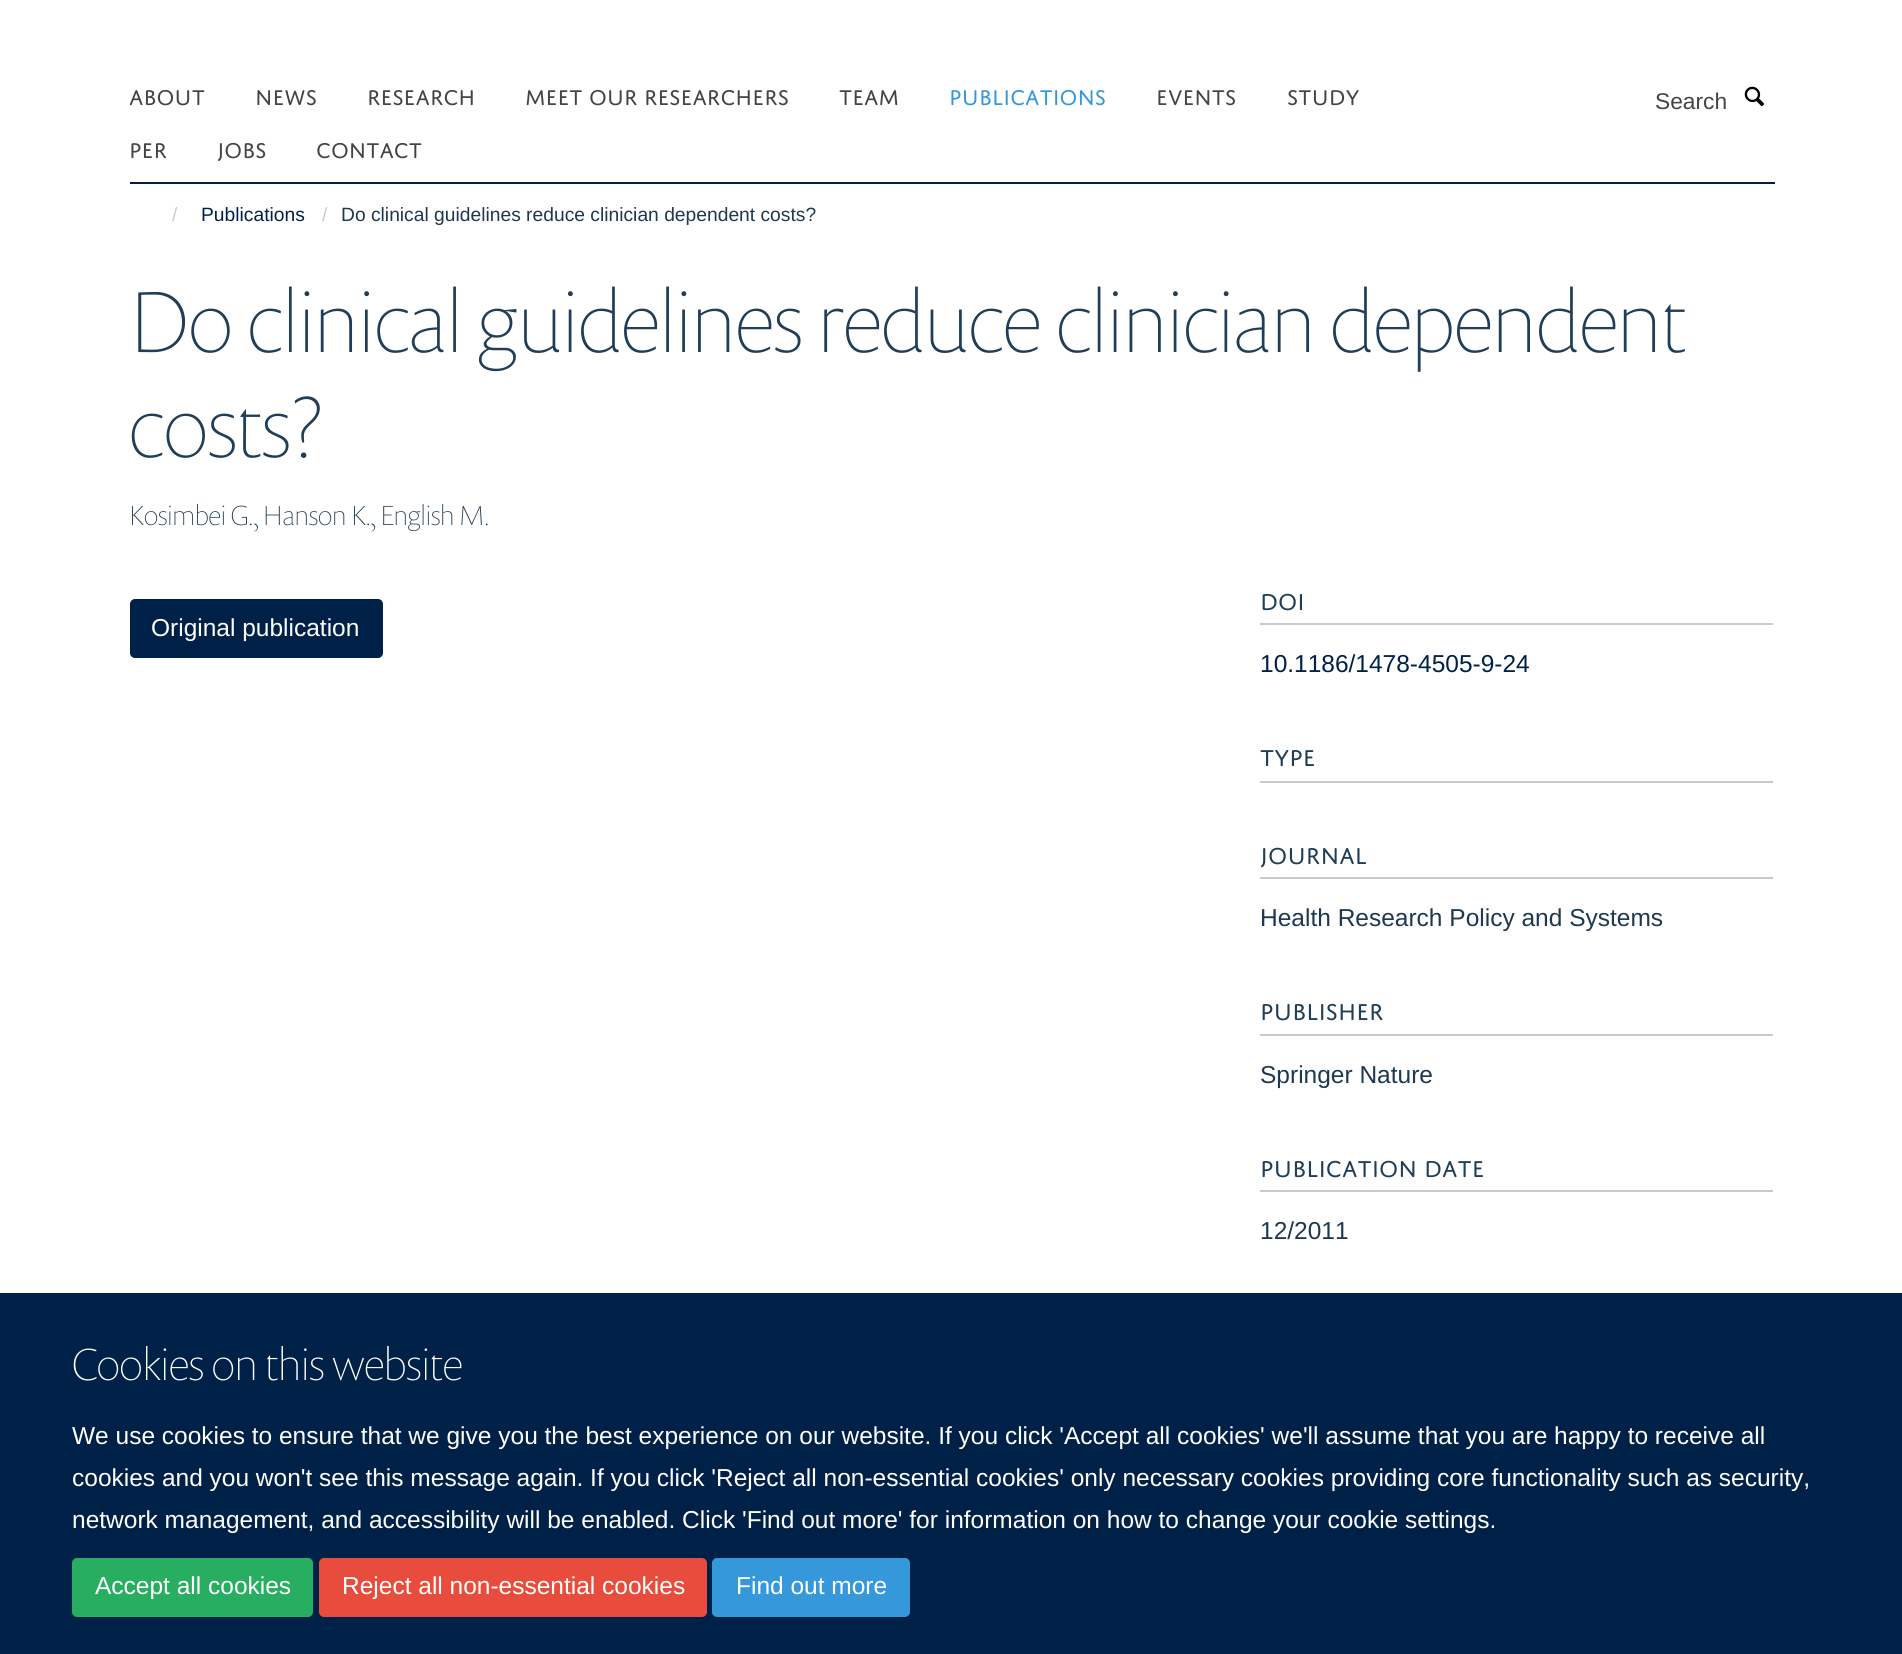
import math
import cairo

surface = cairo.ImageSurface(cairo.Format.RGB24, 1902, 1654)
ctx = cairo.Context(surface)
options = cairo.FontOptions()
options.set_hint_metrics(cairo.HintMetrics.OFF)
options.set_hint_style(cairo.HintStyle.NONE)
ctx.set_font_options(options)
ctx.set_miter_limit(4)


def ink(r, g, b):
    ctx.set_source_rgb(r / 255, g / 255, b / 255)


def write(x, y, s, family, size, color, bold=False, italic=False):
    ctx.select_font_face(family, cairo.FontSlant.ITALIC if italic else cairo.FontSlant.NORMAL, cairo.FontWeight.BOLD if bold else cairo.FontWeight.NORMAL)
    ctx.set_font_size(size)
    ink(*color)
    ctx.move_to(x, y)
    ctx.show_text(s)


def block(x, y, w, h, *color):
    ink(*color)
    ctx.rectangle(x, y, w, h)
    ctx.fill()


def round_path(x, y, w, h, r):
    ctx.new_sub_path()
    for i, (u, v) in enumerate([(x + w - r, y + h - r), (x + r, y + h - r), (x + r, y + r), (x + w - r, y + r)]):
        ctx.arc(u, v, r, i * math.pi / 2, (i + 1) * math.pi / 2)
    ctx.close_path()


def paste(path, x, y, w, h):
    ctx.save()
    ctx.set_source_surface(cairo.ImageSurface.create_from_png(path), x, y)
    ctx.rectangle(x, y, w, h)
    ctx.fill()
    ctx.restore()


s1 = dict(family="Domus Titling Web", size=22.75, color=(68, 68, 68))
s2 = dict(family="Domus Titling Web", size=22.75, color=(52, 152, 219))
s3 = dict(family="Liberation Sans", size=22.75, color=(68, 68, 68))
s4 = dict(family="Liberation Sans", size=19.25, color=(204, 204, 204))
s5 = dict(family="Liberation Sans", size=19.25, color=(0, 33, 71))
s6 = dict(family="Liberation Sans", size=19.25, color=(29, 56, 80))
s7 = dict(family="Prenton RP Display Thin", size=87.5, color=(32, 62, 88))
s8 = dict(family="Prenton RP Display Thin", size=28, color=(32, 62, 88))
s9 = dict(family="Liberation Sans", size=24.5, color=(255, 255, 255))
s10 = dict(family="Domus Titling Web", size=24.5, color=(32, 62, 88))
s11 = dict(family="Liberation Sans", size=24.5, color=(0, 33, 71))
s12 = dict(family="Liberation Sans", size=24.5, color=(29, 56, 80))
s13 = dict(family="Prenton RP Display Thin", size=45.5, color=(255, 255, 255))

ink(255, 255, 255)
ctx.paint()
block(130, 182, 1645, 2, 0, 33, 71)
write(129, 105, "ABOUT", **s1)
write(255, 105, "NEWS", **s1)
write(367, 105, "RESEARCH", **s1)
write(525, 105, "MEET OUR RESEARCHERS", **s1)
write(839, 105, "TEAM", **s1)
write(949, 105, "PUBLICATIONS", **s2)
write(1156, 105, "EVENTS", **s1)
write(1287, 105, "STUDY", **s1)
write(129, 158, "PER", **s1)
write(217, 158, "JOBS", **s1)
write(316, 158, "CONTACT", **s1)
write(1655, 109, "Search", **s3)
paste("pic1.png", 1744, 86, 20, 21)
write(172, 221, "/", **s4)
write(201, 221, "Publications", **s5)
write(322, 221, "/", **s4)
write(341, 221, "Do clinical guidelines reduce clinician dependent costs?", **s6)
write(129, 352, "Do clinical guidelines reduce clinician dependent", **s7)
write(129, 457, "costs?", **s7)
write(129, 525, "Kosimbei G., Hanson K., English M.", **s8)
ink(0, 33, 71)
round_path(131, 600, 251, 57, 4)
ctx.fill_preserve()
ctx.stroke()
write(151, 636, "Original publication", **s9)
block(1260, 623, 513, 2, 198, 202, 207)
write(1260, 610, "DOI", **s10)
write(1260, 672, "10.1186/1478-4505-9-24", **s11)
block(1260, 781, 513, 2, 198, 202, 207)
write(1260, 766, "TYPE", **s10)
block(1260, 877, 513, 2, 198, 202, 207)
write(1260, 864, "JOURNAL", **s10)
write(1260, 926, "Health Research Policy and Systems", **s12)
block(1260, 1034, 513, 2, 198, 202, 207)
write(1260, 1020, "PUBLISHER", **s10)
write(1260, 1083, "Springer Nature", **s12)
block(1260, 1190, 513, 2, 198, 202, 207)
write(1260, 1177, "PUBLICATION DATE", **s10)
write(1260, 1239, "12/2011", **s12)
block(0, 1293, 1902, 361, 0, 33, 71)
write(72, 1380, "Cookies on this website", **s13)
write(72, 1444, "We use cookies to ensure that we give you the best experience on our website. If you click 'Accept all cookies' we'll assume that you are happy to receive all", **s9)
write(72, 1486, "cookies and you won't see this message again. If you click 'Reject all non-essential cookies' only necessary cookies providing core functionality such as security,", **s9)
write(72, 1528, "network management, and accessibility will be enabled. Click 'Find out more' for information on how to change your cookie settings.", **s9)
ink(39, 174, 96)
round_path(73, 1559, 239, 57, 4)
ctx.fill_preserve()
ctx.stroke()
write(95, 1594, "Accept all cookies", **s9)
ink(231, 76, 60)
round_path(320, 1559, 386, 57, 4)
ctx.fill_preserve()
ctx.stroke()
write(342, 1594, "Reject all non-essential cookies", **s9)
ink(52, 152, 219)
round_path(713, 1559, 196, 57, 4)
ctx.fill_preserve()
ctx.stroke()
write(736, 1594, "Find out more", **s9)
surface.write_to_png("screenshot.png")
